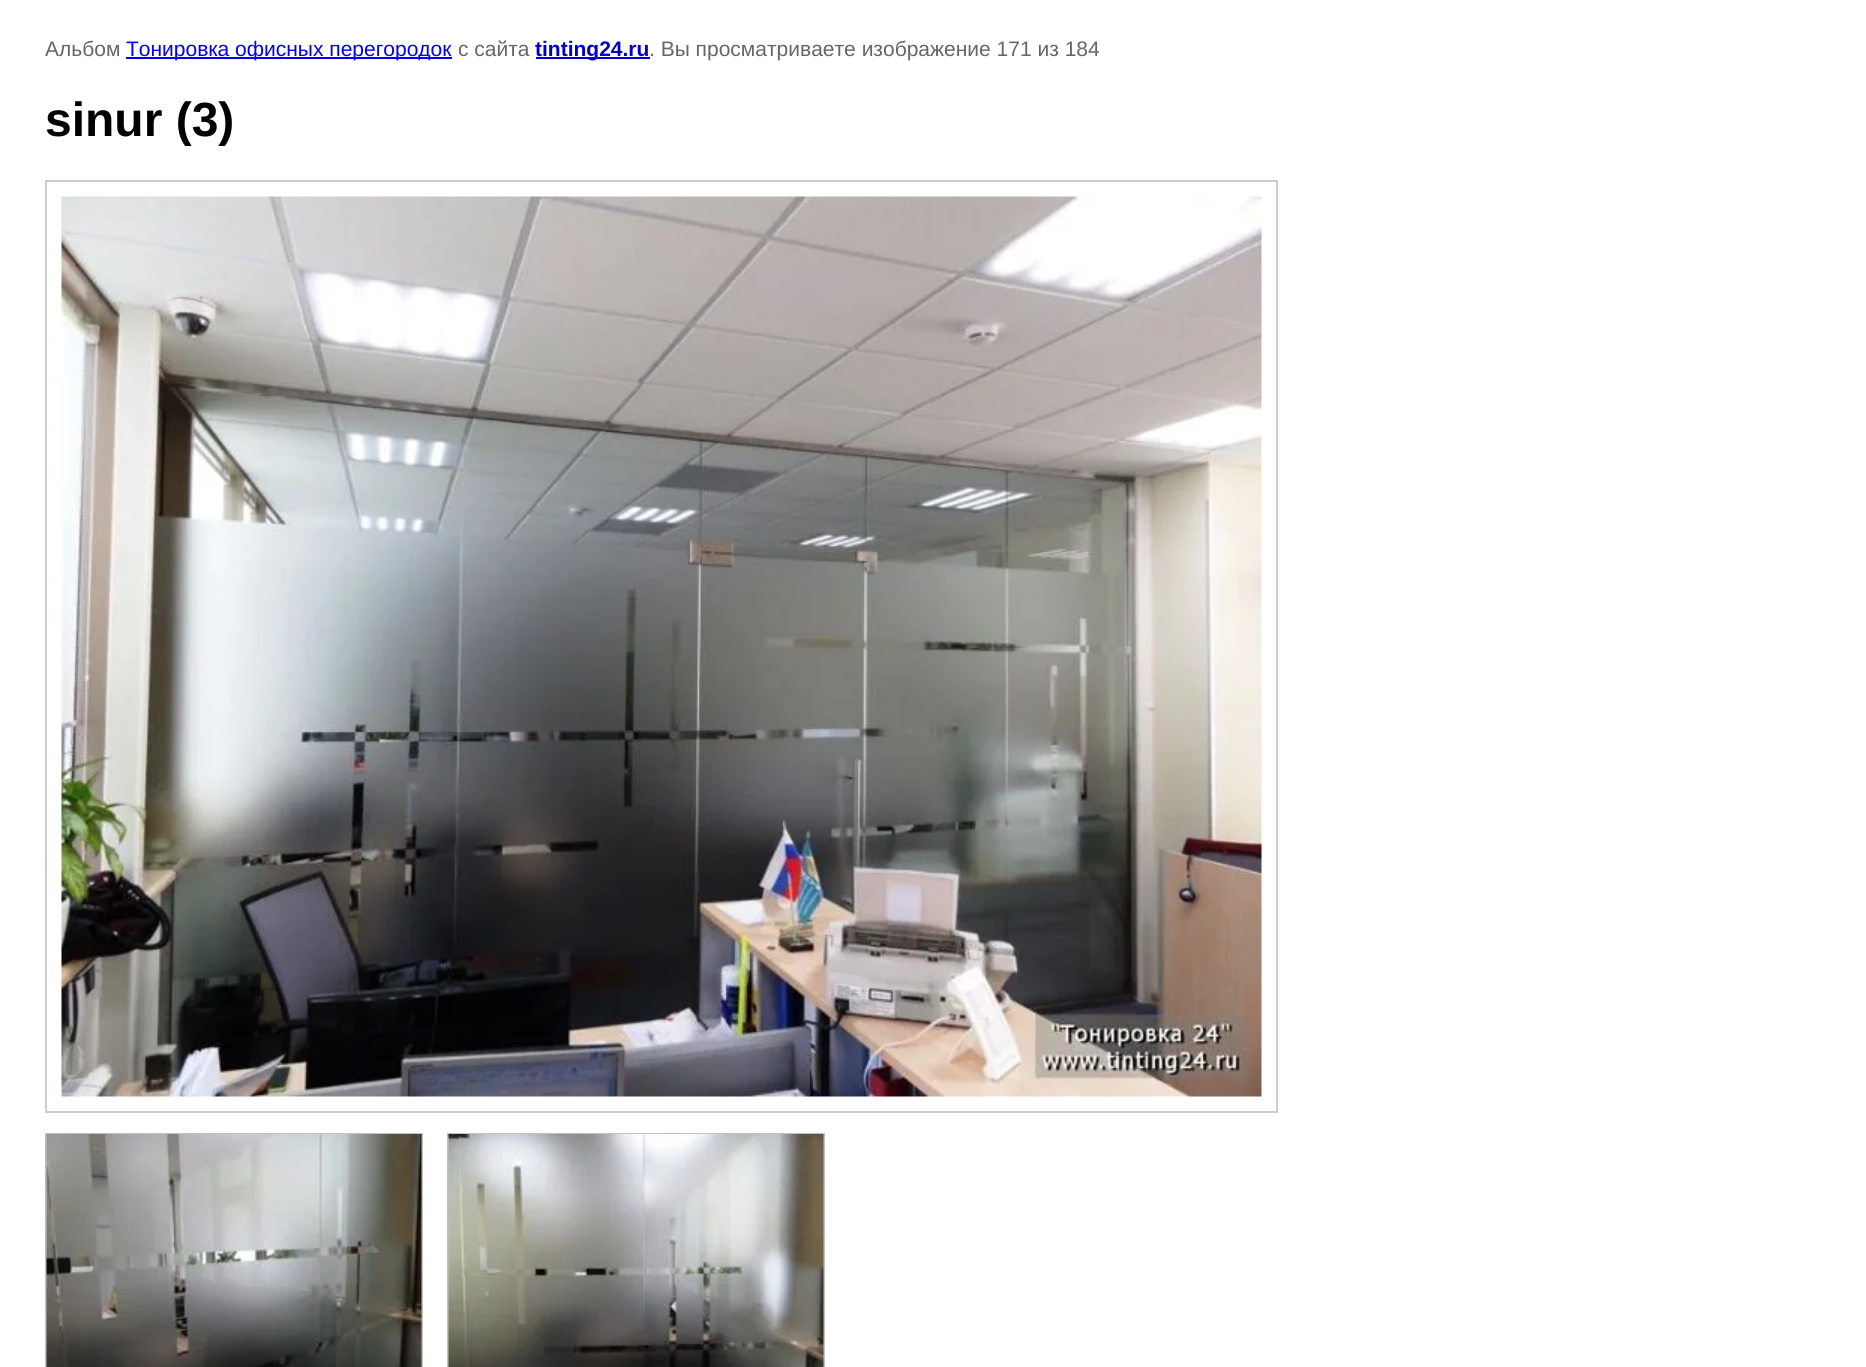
import math
import cairo

surface = cairo.ImageSurface(cairo.Format.RGB24, 1866, 1367)
ctx = cairo.Context(surface)
options = cairo.FontOptions()
options.set_hint_metrics(cairo.HintMetrics.OFF)
options.set_hint_style(cairo.HintStyle.NONE)
ctx.set_font_options(options)
ctx.set_miter_limit(4)


def ink(r, g, b):
    ctx.set_source_rgb(r / 255, g / 255, b / 255)


def write(x, y, s, family, size, color, bold=False, italic=False):
    ctx.select_font_face(family, cairo.FontSlant.ITALIC if italic else cairo.FontSlant.NORMAL, cairo.FontWeight.BOLD if bold else cairo.FontWeight.NORMAL)
    ctx.set_font_size(size)
    ink(*color)
    ctx.move_to(x, y)
    ctx.show_text(s)


def block(x, y, w, h, *color):
    ink(*color)
    ctx.rectangle(x, y, w, h)
    ctx.fill()


def paste(path, x, y, w, h):
    ctx.save()
    ctx.set_source_surface(cairo.ImageSurface.create_from_png(path), x, y)
    ctx.rectangle(x, y, w, h)
    ctx.fill()
    ctx.restore()


s1 = dict(family="Liberation Sans", size=21, color=(102, 102, 102))
s2 = dict(family="Liberation Sans", size=21, color=(0, 0, 255))
s3 = dict(family="Liberation Sans", size=21, color=(0, 0, 204), bold=True)
s4 = dict(family="Liberation Sans", size=48, color=(0, 0, 0), bold=True)

ink(255, 255, 255)
ctx.paint()
write(45, 56, "Альбом", **s1)
block(126, 57, 326, 2, 0, 0, 255)
write(126, 56, "Тонировка офисных перегородок", **s2)
write(458, 56, "с сайта", **s1)
block(536, 57, 114, 2, 0, 0, 204)
write(535, 56, "tinting24.ru", **s3)
write(649, 56, ". Вы просматриваете изображение 171 из 184", **s1)
write(45, 136, "sinur (3)", **s4)
ctx.rectangle(46, 181, 1231, 931)
ink(204, 204, 204)
ctx.stroke()
paste("pic1.png", 61, 196, 1201, 901)
ctx.rectangle(46, 1134, 376, 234)
ink(192, 192, 192)
ctx.stroke()
paste("pic2.png", 46, 1134, 376, 233)
ctx.rectangle(448, 1134, 376, 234)
ctx.stroke()
paste("pic3.png", 448, 1134, 376, 233)
surface.write_to_png("screenshot.png")
